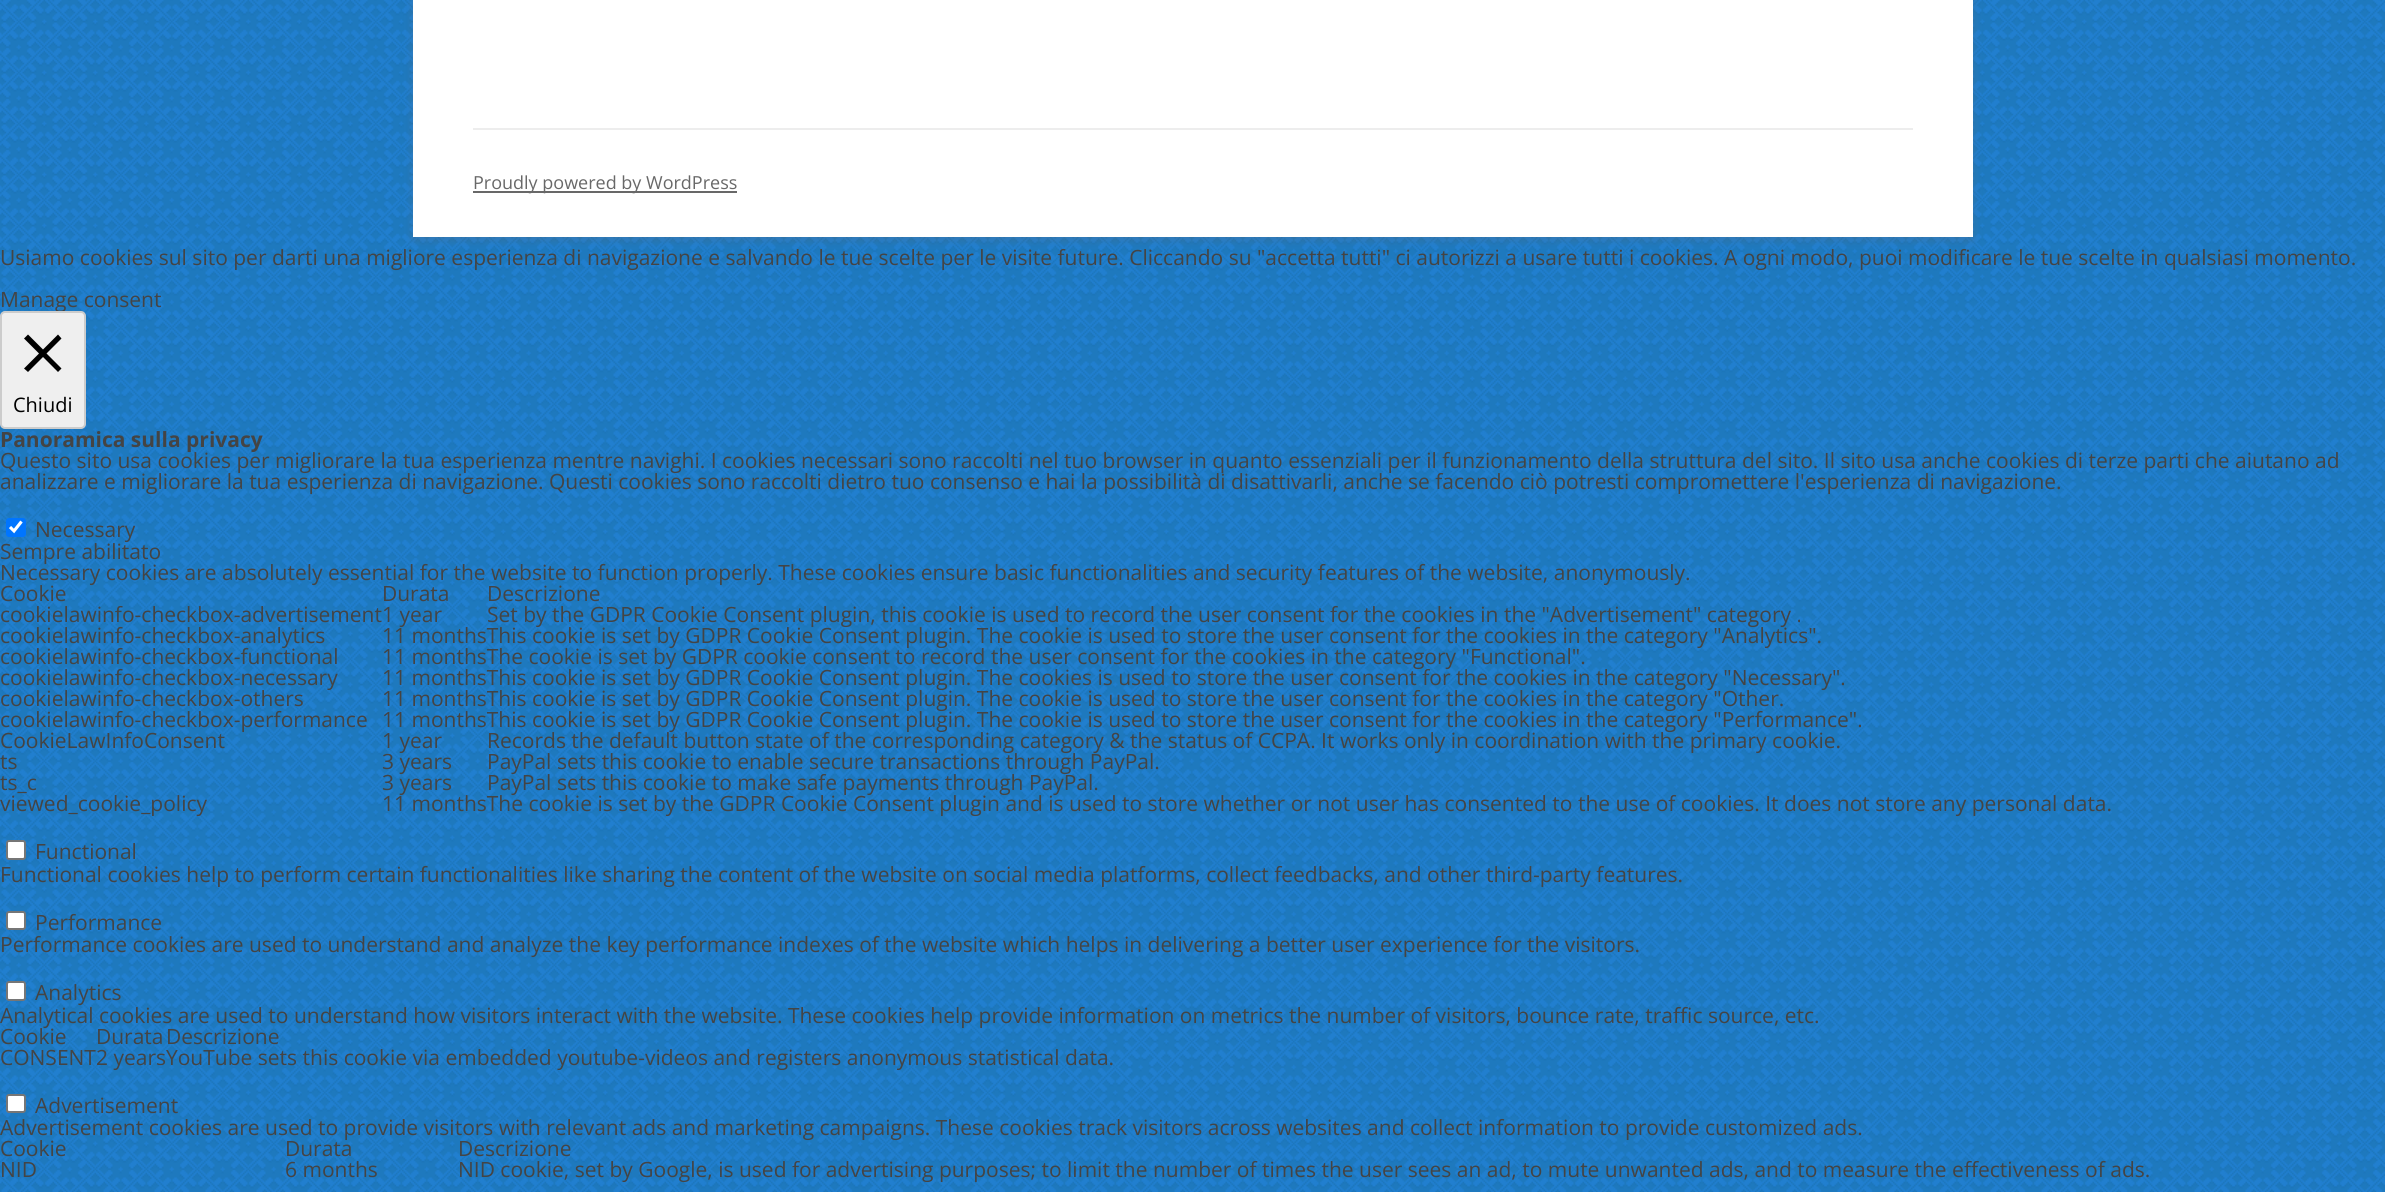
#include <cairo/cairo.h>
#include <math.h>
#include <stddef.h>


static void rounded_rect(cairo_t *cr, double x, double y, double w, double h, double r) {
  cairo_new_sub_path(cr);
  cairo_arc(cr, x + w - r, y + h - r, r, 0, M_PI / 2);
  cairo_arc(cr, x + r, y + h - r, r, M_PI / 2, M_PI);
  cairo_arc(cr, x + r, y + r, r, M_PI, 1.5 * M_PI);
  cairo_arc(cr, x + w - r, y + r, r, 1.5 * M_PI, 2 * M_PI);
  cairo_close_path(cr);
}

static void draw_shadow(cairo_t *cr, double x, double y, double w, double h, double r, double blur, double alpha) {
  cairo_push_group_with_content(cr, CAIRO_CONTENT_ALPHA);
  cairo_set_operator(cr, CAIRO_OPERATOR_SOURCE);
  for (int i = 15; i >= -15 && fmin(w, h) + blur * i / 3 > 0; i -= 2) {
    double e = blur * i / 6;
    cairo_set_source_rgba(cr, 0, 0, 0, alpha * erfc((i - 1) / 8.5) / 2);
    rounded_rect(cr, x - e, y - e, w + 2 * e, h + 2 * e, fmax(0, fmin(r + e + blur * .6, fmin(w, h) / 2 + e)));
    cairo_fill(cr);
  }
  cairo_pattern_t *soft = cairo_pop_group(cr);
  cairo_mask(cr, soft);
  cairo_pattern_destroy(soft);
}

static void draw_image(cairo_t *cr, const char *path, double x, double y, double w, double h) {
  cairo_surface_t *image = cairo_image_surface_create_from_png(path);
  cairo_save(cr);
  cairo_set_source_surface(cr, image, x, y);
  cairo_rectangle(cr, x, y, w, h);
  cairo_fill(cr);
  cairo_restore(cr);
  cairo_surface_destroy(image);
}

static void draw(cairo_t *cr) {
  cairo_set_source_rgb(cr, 1, 1, 1);
  cairo_paint(cr);
  draw_image(cr, "images/1.png", 0, 0, 2385, 1192);
  cairo_set_source_rgb(cr, 100 / 255.0, 100 / 255.0, 100 / 255.0);
  draw_shadow(cr, 413, -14, 1560, 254, 0, 4.5, 0.3);
  cairo_set_source_rgb(cr, 1, 1, 1);
  cairo_rectangle(cr, 413, 0, 1560, 237);
  cairo_fill(cr);
  cairo_set_source_rgb(cr, 237 / 255.0, 237 / 255.0, 237 / 255.0);
  cairo_rectangle(cr, 473, 128, 1440, 2);
  cairo_fill(cr);
  cairo_set_source_rgb(cr, 104 / 255.0, 104 / 255.0, 104 / 255.0);
  cairo_rectangle(cr, 473, 191, 264, 2);
  cairo_fill(cr);
  cairo_set_source_rgb(cr, 0, 117 / 255.0, 1);
  rounded_rect(cr, 6, 518, 20, 19, 3);
  cairo_fill(cr);
  cairo_new_path(cr);
  cairo_move_to(cr, 10, 527);
  cairo_line_to(cr, 14, 531);
  cairo_line_to(cr, 21.5, 521.5);
  cairo_set_source_rgb(cr, 1, 1, 1);
  cairo_set_line_width(cr, 3.1);
  cairo_stroke(cr);
  rounded_rect(cr, 7, 841, 18, 18, 2);
  cairo_fill_preserve(cr);
  cairo_set_source_rgb(cr, 118 / 255.0, 118 / 255.0, 118 / 255.0);
  cairo_set_line_width(cr, 2);
  cairo_stroke(cr);
  cairo_set_source_rgb(cr, 1, 1, 1);
  rounded_rect(cr, 7, 912, 18, 17, 2);
  cairo_fill_preserve(cr);
  cairo_set_source_rgb(cr, 118 / 255.0, 118 / 255.0, 118 / 255.0);
  cairo_stroke(cr);
  cairo_set_source_rgb(cr, 1, 1, 1);
  rounded_rect(cr, 7, 982, 18, 18, 2);
  cairo_fill_preserve(cr);
  cairo_set_source_rgb(cr, 118 / 255.0, 118 / 255.0, 118 / 255.0);
  cairo_stroke(cr);
  cairo_set_source_rgb(cr, 1, 1, 1);
  rounded_rect(cr, 7, 1095, 18, 17, 2);
  cairo_fill_preserve(cr);
  cairo_set_source_rgb(cr, 118 / 255.0, 118 / 255.0, 118 / 255.0);
  cairo_stroke(cr);
  cairo_select_font_face(cr, "Open Sans", CAIRO_FONT_SLANT_NORMAL, CAIRO_FONT_WEIGHT_NORMAL);
  cairo_set_font_size(cr, 18);
  cairo_set_source_rgb(cr, 104 / 255.0, 104 / 255.0, 104 / 255.0);
  cairo_move_to(cr, 473, 189);
  cairo_show_text(cr, "Proudly powered by WordPress");
  cairo_set_font_size(cr, 21);
  cairo_set_source_rgb(cr, 68 / 255.0, 68 / 255.0, 68 / 255.0);
  cairo_move_to(cr, 0, 265);
  cairo_show_text(cr, "Usiamo cookies sul sito per darti una migliore esperienza di navigazione e salvando le tue scelte per le visite future. Cliccando su \"accetta tutti\" ci autorizzi a usare tutti i cookies. A ogni modo, puoi modificare le tue scelte in qualsiasi momento.");
  cairo_move_to(cr, 0, 307);
  cairo_show_text(cr, "Manage consent");
  cairo_set_source_rgb(cr, 239 / 255.0, 239 / 255.0, 239 / 255.0);
  rounded_rect(cr, 1, 312, 84, 116, 4);
  cairo_fill_preserve(cr);
  cairo_set_source_rgb(cr, 204 / 255.0, 204 / 255.0, 204 / 255.0);
  cairo_stroke(cr);
  cairo_set_source_rgb(cr, 0, 0, 0);
  cairo_new_path(cr);
  cairo_move_to(cr, 61.5, 338.5);
  cairo_line_to(cr, 58, 334.5);
  cairo_line_to(cr, 43, 349.5);
  cairo_line_to(cr, 28, 334.5);
  cairo_line_to(cr, 24, 338.5);
  cairo_line_to(cr, 39, 353.5);
  cairo_line_to(cr, 24, 368.5);
  cairo_line_to(cr, 28, 372);
  cairo_line_to(cr, 43, 357);
  cairo_line_to(cr, 58, 372);
  cairo_line_to(cr, 61.5, 368.5);
  cairo_line_to(cr, 46.5, 353.5);
  cairo_close_path(cr);
  cairo_fill(cr);
  cairo_set_font_size(cr, 20);
  cairo_move_to(cr, 13, 412);
  cairo_show_text(cr, "Chiudi");
  cairo_select_font_face(cr, "Open Sans", CAIRO_FONT_SLANT_NORMAL, CAIRO_FONT_WEIGHT_BOLD);
  cairo_set_font_size(cr, 21);
  cairo_set_source_rgb(cr, 68 / 255.0, 68 / 255.0, 68 / 255.0);
  cairo_move_to(cr, 0, 447);
  cairo_show_text(cr, "Panoramica sulla privacy");
  cairo_select_font_face(cr, "Open Sans", CAIRO_FONT_SLANT_NORMAL, CAIRO_FONT_WEIGHT_NORMAL);
  cairo_move_to(cr, 0, 468);
  cairo_show_text(cr, "Questo sito usa cookies per migliorare la tua esperienza mentre navighi. I cookies necessari sono raccolti nel tuo browser in quanto essenziali per il funzionamento della struttura del sito. Il sito usa anche cookies di terze parti che aiutano ad");
  cairo_move_to(cr, 0, 489);
  cairo_show_text(cr, "analizzare e migliorare la tua esperienza di navigazione. Questi cookies sono raccolti dietro tuo consenso e hai la possibilità di disattivarli, anche se facendo ciò potresti compromettere l'esperienza di navigazione.");
  cairo_move_to(cr, 35, 537);
  cairo_show_text(cr, "Necessary");
  cairo_move_to(cr, 0, 559);
  cairo_show_text(cr, "Sempre abilitato");
  cairo_move_to(cr, 0, 580);
  cairo_show_text(cr, "Necessary cookies are absolutely essential for the website to function properly. These cookies ensure basic functionalities and security features of the website, anonymously.");
  cairo_move_to(cr, 0, 601);
  cairo_show_text(cr, "Cookie");
  cairo_move_to(cr, 382, 601);
  cairo_show_text(cr, "Durata");
  cairo_move_to(cr, 487, 601);
  cairo_show_text(cr, "Descrizione");
  cairo_move_to(cr, 0, 622);
  cairo_show_text(cr, "cookielawinfo-checkbox-advertisement1 year");
  cairo_move_to(cr, 487, 622);
  cairo_show_text(cr, "Set by the GDPR Cookie Consent plugin, this cookie is used to record the user consent for the cookies in the \"Advertisement\" category .");
  cairo_move_to(cr, 0, 643);
  cairo_show_text(cr, "cookielawinfo-checkbox-analytics");
  cairo_move_to(cr, 382, 643);
  cairo_show_text(cr, "11 monthsThis cookie is set by GDPR Cookie Consent plugin. The cookie is used to store the user consent for the cookies in the category \"Analytics\".");
  cairo_move_to(cr, 0, 664);
  cairo_show_text(cr, "cookielawinfo-checkbox-functional");
  cairo_move_to(cr, 382, 664);
  cairo_show_text(cr, "11 monthsThe cookie is set by GDPR cookie consent to record the user consent for the cookies in the category \"Functional\".");
  cairo_move_to(cr, 0, 685);
  cairo_show_text(cr, "cookielawinfo-checkbox-necessary");
  cairo_move_to(cr, 382, 685);
  cairo_show_text(cr, "11 monthsThis cookie is set by GDPR Cookie Consent plugin. The cookies is used to store the user consent for the cookies in the category \"Necessary\".");
  cairo_move_to(cr, 0, 706);
  cairo_show_text(cr, "cookielawinfo-checkbox-others");
  cairo_move_to(cr, 382, 706);
  cairo_show_text(cr, "11 monthsThis cookie is set by GDPR Cookie Consent plugin. The cookie is used to store the user consent for the cookies in the category \"Other.");
  cairo_move_to(cr, 0, 727);
  cairo_show_text(cr, "cookielawinfo-checkbox-performance");
  cairo_move_to(cr, 382, 727);
  cairo_show_text(cr, "11 monthsThis cookie is set by GDPR Cookie Consent plugin. The cookie is used to store the user consent for the cookies in the category \"Performance\".");
  cairo_move_to(cr, 0, 748);
  cairo_show_text(cr, "CookieLawInfoConsent");
  cairo_move_to(cr, 382, 748);
  cairo_show_text(cr, "1 year");
  cairo_move_to(cr, 487, 748);
  cairo_show_text(cr, "Records the default button state of the corresponding category & the status of CCPA. It works only in coordination with the primary cookie.");
  cairo_move_to(cr, 0, 769);
  cairo_show_text(cr, "ts");
  cairo_move_to(cr, 382, 769);
  cairo_show_text(cr, "3 years");
  cairo_move_to(cr, 487, 769);
  cairo_show_text(cr, "PayPal sets this cookie to enable secure transactions through PayPal.");
  cairo_move_to(cr, 0, 790);
  cairo_show_text(cr, "ts_c");
  cairo_move_to(cr, 382, 790);
  cairo_show_text(cr, "3 years");
  cairo_move_to(cr, 487, 790);
  cairo_show_text(cr, "PayPal sets this cookie to make safe payments through PayPal.");
  cairo_move_to(cr, 0, 811);
  cairo_show_text(cr, "viewed_cookie_policy");
  cairo_move_to(cr, 382, 811);
  cairo_show_text(cr, "11 monthsThe cookie is set by the GDPR Cookie Consent plugin and is used to store whether or not user has consented to the use of cookies. It does not store any personal data.");
  cairo_move_to(cr, 35, 859);
  cairo_show_text(cr, "Functional");
  cairo_move_to(cr, 0, 882);
  cairo_show_text(cr, "Functional cookies help to perform certain functionalities like sharing the content of the website on social media platforms, collect feedbacks, and other third-party features.");
  cairo_move_to(cr, 35, 930);
  cairo_show_text(cr, "Performance");
  cairo_move_to(cr, 0, 952);
  cairo_show_text(cr, "Performance cookies are used to understand and analyze the key performance indexes of the website which helps in delivering a better user experience for the visitors.");
  cairo_move_to(cr, 35, 1000);
  cairo_show_text(cr, "Analytics");
  cairo_move_to(cr, 0, 1023);
  cairo_show_text(cr, "Analytical cookies are used to understand how visitors interact with the website. These cookies help provide information on metrics the number of visitors, bounce rate, traffic source, etc.");
  cairo_move_to(cr, 0, 1044);
  cairo_show_text(cr, "Cookie");
  cairo_move_to(cr, 96, 1044);
  cairo_show_text(cr, "Durata");
  cairo_move_to(cr, 166, 1044);
  cairo_show_text(cr, "Descrizione");
  cairo_move_to(cr, 0, 1065);
  cairo_show_text(cr, "CONSENT2 yearsYouTube sets this cookie via embedded youtube-videos and registers anonymous statistical data.");
  cairo_move_to(cr, 35, 1113);
  cairo_show_text(cr, "Advertisement");
  cairo_move_to(cr, 0, 1135);
  cairo_show_text(cr, "Advertisement cookies are used to provide visitors with relevant ads and marketing campaigns. These cookies track visitors across websites and collect information to provide customized ads.");
  cairo_move_to(cr, 0, 1156);
  cairo_show_text(cr, "Cookie");
  cairo_move_to(cr, 285, 1156);
  cairo_show_text(cr, "Durata");
  cairo_move_to(cr, 458, 1156);
  cairo_show_text(cr, "Descrizione");
  cairo_move_to(cr, 0, 1177);
  cairo_show_text(cr, "NID");
  cairo_move_to(cr, 285, 1177);
  cairo_show_text(cr, "6 months");
  cairo_move_to(cr, 458, 1177);
  cairo_show_text(cr, "NID cookie, set by Google, is used for advertising purposes; to limit the number of times the user sees an ad, to mute unwanted ads, and to measure the effectiveness of ads.");
}

int main(void) {
  cairo_surface_t *surface = cairo_image_surface_create(CAIRO_FORMAT_RGB24, 2385, 1192);
  cairo_t *cr = cairo_create(surface);
  cairo_font_options_t *options = cairo_font_options_create();
  cairo_font_options_set_hint_metrics(options, CAIRO_HINT_METRICS_OFF);
  cairo_font_options_set_hint_style(options, CAIRO_HINT_STYLE_NONE);
  cairo_set_font_options(cr, options);
  cairo_set_miter_limit(cr, 4);
  draw(cr);
  cairo_surface_write_to_png(surface, "out.png");
  cairo_font_options_destroy(options);
  cairo_destroy(cr);
  cairo_surface_destroy(surface);
  return 0;
}
